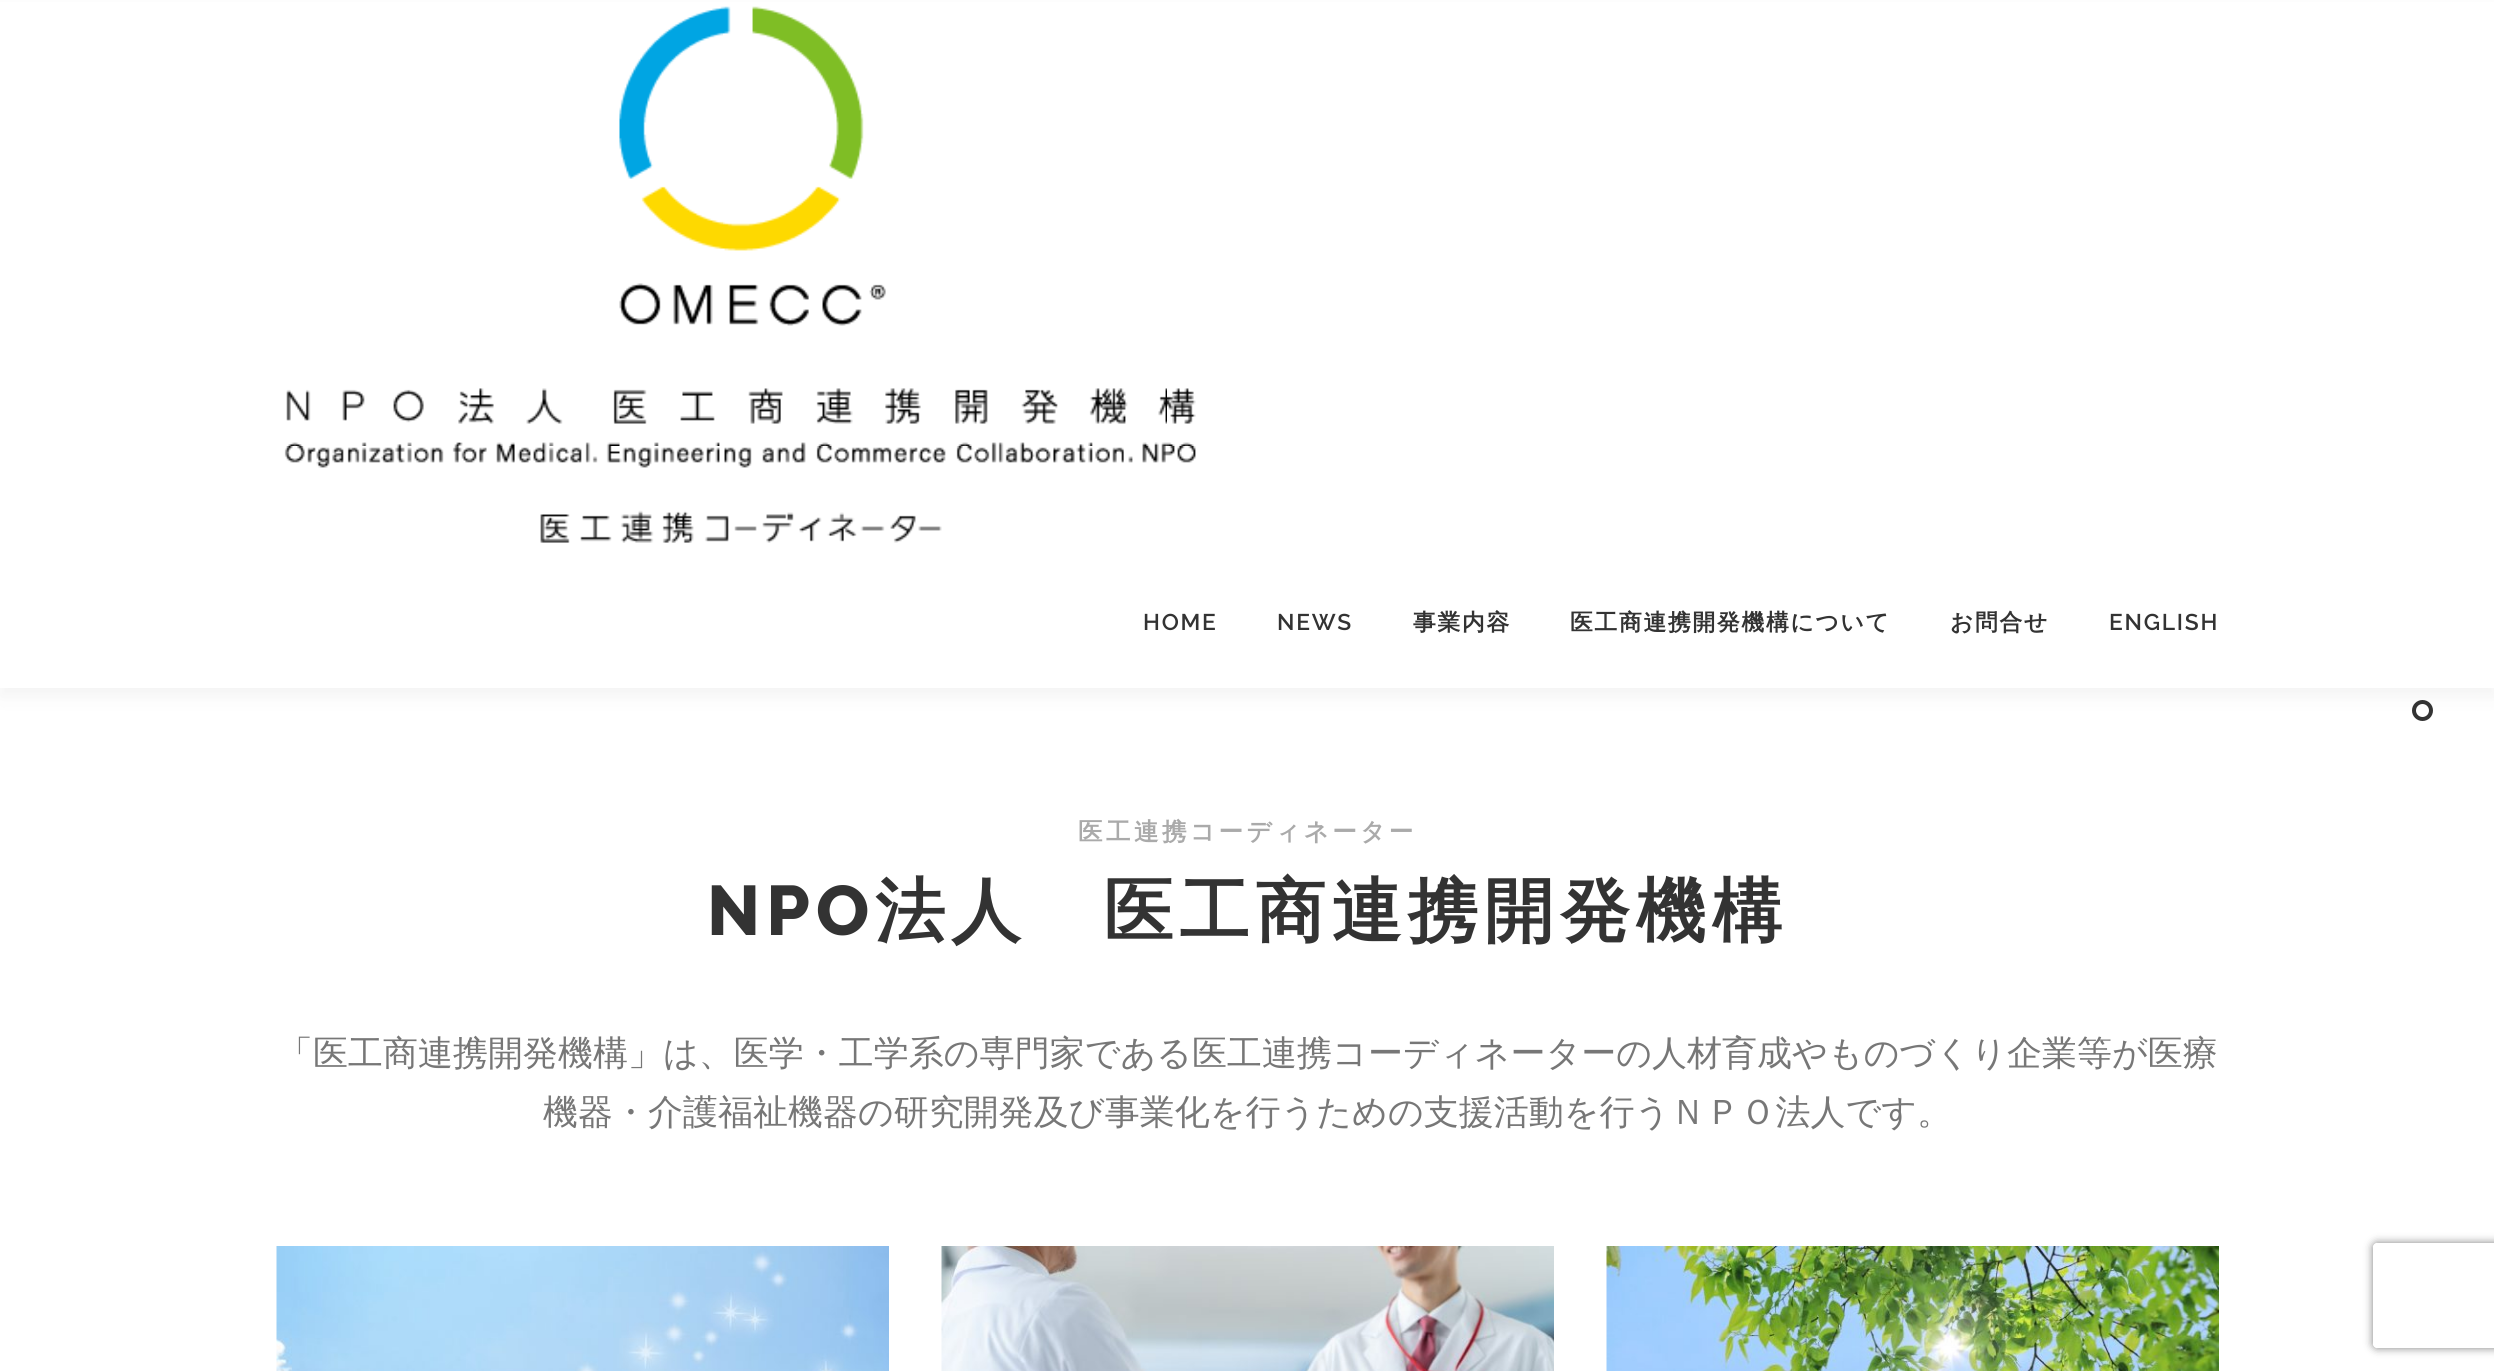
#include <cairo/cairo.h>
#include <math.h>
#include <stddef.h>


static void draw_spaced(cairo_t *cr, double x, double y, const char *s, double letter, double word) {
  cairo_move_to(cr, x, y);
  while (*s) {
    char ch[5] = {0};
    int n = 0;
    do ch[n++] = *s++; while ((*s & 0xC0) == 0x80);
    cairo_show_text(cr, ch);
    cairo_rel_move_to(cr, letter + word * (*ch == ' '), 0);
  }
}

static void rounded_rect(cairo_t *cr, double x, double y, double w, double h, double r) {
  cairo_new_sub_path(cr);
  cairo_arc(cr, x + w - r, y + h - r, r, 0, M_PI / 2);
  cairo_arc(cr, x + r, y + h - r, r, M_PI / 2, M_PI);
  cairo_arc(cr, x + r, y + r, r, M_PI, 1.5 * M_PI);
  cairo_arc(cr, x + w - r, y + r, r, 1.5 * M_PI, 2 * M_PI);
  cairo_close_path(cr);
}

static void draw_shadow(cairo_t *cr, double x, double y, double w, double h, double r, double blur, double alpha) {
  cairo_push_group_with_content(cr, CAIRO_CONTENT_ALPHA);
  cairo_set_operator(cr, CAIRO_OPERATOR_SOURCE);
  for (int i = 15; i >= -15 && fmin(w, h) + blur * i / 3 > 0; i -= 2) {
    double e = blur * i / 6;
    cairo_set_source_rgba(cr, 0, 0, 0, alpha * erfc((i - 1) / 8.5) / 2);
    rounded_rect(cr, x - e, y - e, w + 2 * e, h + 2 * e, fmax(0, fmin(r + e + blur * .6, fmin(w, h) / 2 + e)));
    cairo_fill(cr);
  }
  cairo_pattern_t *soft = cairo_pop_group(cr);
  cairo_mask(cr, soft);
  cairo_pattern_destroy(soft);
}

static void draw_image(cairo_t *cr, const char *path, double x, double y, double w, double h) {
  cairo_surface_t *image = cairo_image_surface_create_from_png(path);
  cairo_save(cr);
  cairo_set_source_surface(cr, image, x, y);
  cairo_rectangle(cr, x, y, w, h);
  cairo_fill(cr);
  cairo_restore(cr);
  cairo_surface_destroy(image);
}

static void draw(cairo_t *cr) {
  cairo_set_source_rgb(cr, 1, 1, 1);
  cairo_paint(cr);
  cairo_arc(cr, 2422.5, 710.5, 8.5, 0, 2 * M_PI);
  cairo_set_source_rgb(cr, 51 / 255.0, 51 / 255.0, 51 / 255.0);
  cairo_set_line_width(cr, 4);
  cairo_stroke(cr);
  cairo_set_source_rgb(cr, 50 / 255.0, 50 / 255.0, 50 / 255.0);
  draw_shadow(cr, 0, 9, 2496, 688, 0, 9, 0.06);
  cairo_set_source_rgb(cr, 1, 1, 1);
  cairo_rectangle(cr, 0, 2, 2494, 686);
  cairo_fill(cr);
  draw_image(cr, "images/1.png", 284, 6, 912, 537);
  draw_image(cr, "images/2.png", 276, 1246, 613, 125);
  draw_image(cr, "images/3.png", 941, 1246, 613, 125);
  draw_image(cr, "images/4.png", 1606, 1246, 613, 125);
  cairo_save(cr);
  cairo_set_fill_rule(cr, CAIRO_FILL_RULE_EVEN_ODD);
  cairo_new_path(cr);
  cairo_move_to(cr, 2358, 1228);
  cairo_line_to(cr, 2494, 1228);
  cairo_line_to(cr, 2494, 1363);
  cairo_line_to(cr, 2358, 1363);
  cairo_close_path(cr);
  cairo_move_to(cr, 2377, 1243);
  cairo_line_to(cr, 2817, 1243);
  cairo_curve_to(cr, 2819, 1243, 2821, 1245, 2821, 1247);
  cairo_line_to(cr, 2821, 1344);
  cairo_curve_to(cr, 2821, 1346, 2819, 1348, 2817, 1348);
  cairo_line_to(cr, 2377, 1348);
  cairo_curve_to(cr, 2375, 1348, 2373, 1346, 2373, 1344);
  cairo_line_to(cr, 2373, 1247);
  cairo_curve_to(cr, 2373, 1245, 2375, 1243, 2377, 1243);
  cairo_close_path(cr);
  cairo_clip(cr);
  cairo_set_source_rgb(cr, 128 / 255.0, 128 / 255.0, 128 / 255.0);
  draw_shadow(cr, 2373, 1243, 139, 105, 4, 4.5, 1);
  cairo_restore(cr);
  cairo_select_font_face(cr, "Raleway SemiBold", CAIRO_FONT_SLANT_NORMAL, CAIRO_FONT_WEIGHT_NORMAL);
  cairo_set_font_size(cr, 22.75);
  cairo_set_source_rgb(cr, 51 / 255.0, 51 / 255.0, 51 / 255.0);
  draw_spaced(cr, 1143, 630, "HOME", 1.75, 0);
  draw_spaced(cr, 1277, 630, "NEWS", 1.75, 0);
  cairo_select_font_face(cr, "WenQuanYi Zen Hei", CAIRO_FONT_SLANT_NORMAL, CAIRO_FONT_WEIGHT_BOLD);
  draw_spaced(cr, 1413, 630, "事業内容", 1.75, 0);
  draw_spaced(cr, 1570, 630, "医工商連携開発機構について", 1.75, 0);
  draw_spaced(cr, 1950, 630, "お問合せ", 1.75, 0);
  cairo_select_font_face(cr, "Raleway SemiBold", CAIRO_FONT_SLANT_NORMAL, CAIRO_FONT_WEIGHT_NORMAL);
  draw_spaced(cr, 2109, 630, "ENGLISH", 1.75, 0);
  cairo_select_font_face(cr, "WenQuanYi Zen Hei", CAIRO_FONT_SLANT_NORMAL, CAIRO_FONT_WEIGHT_BOLD);
  cairo_set_font_size(cr, 24.5);
  cairo_set_source_rgb(cr, 170 / 255.0, 170 / 255.0, 170 / 255.0);
  draw_spaced(cr, 1078, 840, "医工連携コーディネーター", 3.5, 0);
  cairo_select_font_face(cr, "Raleway ExtraBold", CAIRO_FONT_SLANT_NORMAL, CAIRO_FONT_WEIGHT_NORMAL);
  cairo_set_font_size(cr, 70);
  cairo_set_source_rgb(cr, 51 / 255.0, 51 / 255.0, 51 / 255.0);
  draw_spaced(cr, 707, 935, "NPO", 6.1, 0);
  cairo_select_font_face(cr, "WenQuanYi Zen Hei", CAIRO_FONT_SLANT_NORMAL, CAIRO_FONT_WEIGHT_BOLD);
  draw_spaced(cr, 875, 935, "法人　医工商連携開発機構", 6.1, 0);
  cairo_select_font_face(cr, "WenQuanYi Zen Hei Medium", CAIRO_FONT_SLANT_NORMAL, CAIRO_FONT_WEIGHT_NORMAL);
  cairo_set_font_size(cr, 35);
  cairo_set_source_rgb(cr, 119 / 255.0, 119 / 255.0, 119 / 255.0);
  cairo_move_to(cr, 278, 1065);
  cairo_show_text(cr, "「医工商連携開発機構」は、医学・工学系の専門家である医工連携コーディネーターの人材育成やものづくり企業等が医療");
  cairo_move_to(cr, 543, 1124);
  cairo_show_text(cr, "機器・介護福祉機器の研究開発及び事業化を行うための支援活動を行うＮＰＯ法人です。");
}

int main(void) {
  cairo_surface_t *surface = cairo_image_surface_create(CAIRO_FORMAT_RGB24, 2494, 1371);
  cairo_t *cr = cairo_create(surface);
  cairo_font_options_t *options = cairo_font_options_create();
  cairo_font_options_set_hint_metrics(options, CAIRO_HINT_METRICS_OFF);
  cairo_font_options_set_hint_style(options, CAIRO_HINT_STYLE_NONE);
  cairo_set_font_options(cr, options);
  cairo_set_miter_limit(cr, 4);
  draw(cr);
  cairo_surface_write_to_png(surface, "out.png");
  cairo_font_options_destroy(options);
  cairo_destroy(cr);
  cairo_surface_destroy(surface);
  return 0;
}
